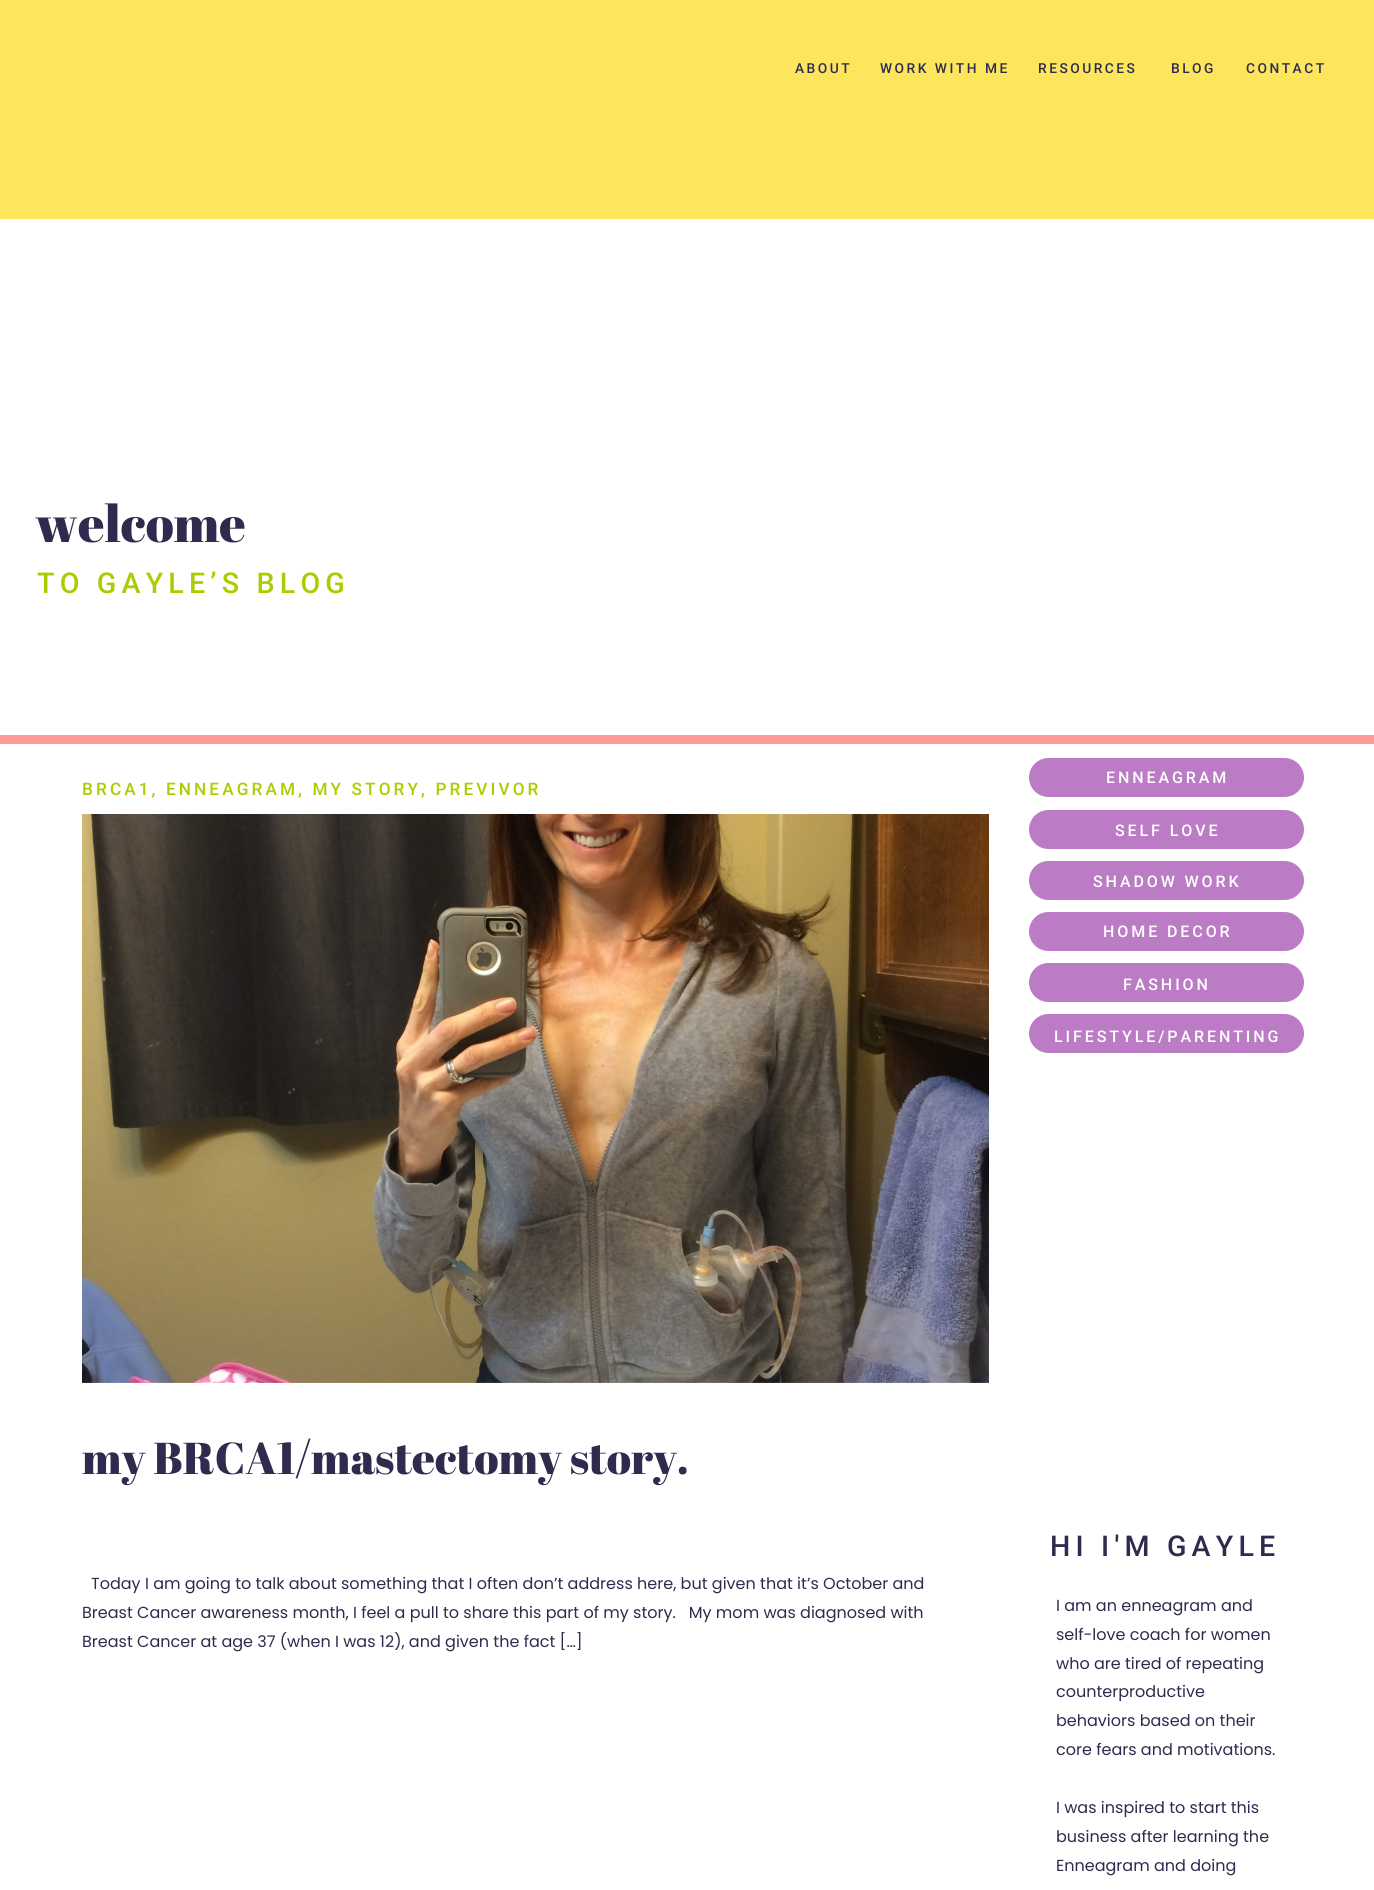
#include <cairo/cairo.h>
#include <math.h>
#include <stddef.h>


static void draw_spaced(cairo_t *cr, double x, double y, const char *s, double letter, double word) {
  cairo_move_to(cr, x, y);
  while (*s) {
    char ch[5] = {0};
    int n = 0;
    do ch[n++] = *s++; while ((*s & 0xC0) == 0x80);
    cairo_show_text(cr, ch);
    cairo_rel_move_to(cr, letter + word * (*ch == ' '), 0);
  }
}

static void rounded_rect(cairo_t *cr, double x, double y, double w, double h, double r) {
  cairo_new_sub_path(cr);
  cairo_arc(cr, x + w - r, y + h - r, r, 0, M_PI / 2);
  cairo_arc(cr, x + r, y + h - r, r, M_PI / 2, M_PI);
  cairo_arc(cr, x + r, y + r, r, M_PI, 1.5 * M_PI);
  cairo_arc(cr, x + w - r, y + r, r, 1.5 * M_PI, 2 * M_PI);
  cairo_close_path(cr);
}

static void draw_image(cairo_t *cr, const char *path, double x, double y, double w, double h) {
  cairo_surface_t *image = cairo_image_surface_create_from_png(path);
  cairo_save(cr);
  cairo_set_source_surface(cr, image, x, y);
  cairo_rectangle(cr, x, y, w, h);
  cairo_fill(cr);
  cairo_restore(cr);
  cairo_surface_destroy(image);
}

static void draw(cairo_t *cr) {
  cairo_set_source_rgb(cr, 254 / 255.0, 155 / 255.0, 150 / 255.0);
  cairo_paint(cr);
  cairo_set_source_rgb(cr, 253 / 255.0, 230 / 255.0, 92 / 255.0);
  cairo_rectangle(cr, 0, 0, 1374, 219);
  cairo_fill(cr);
  cairo_set_source_rgb(cr, 1, 1, 1);
  cairo_rectangle(cr, 0, 219, 1374, 516);
  cairo_fill(cr);
  cairo_rectangle(cr, 0, 744, 1374, 1146);
  cairo_fill(cr);
  draw_image(cr, "images/1.png", 82, 814, 907, 569);
  cairo_set_source_rgb(cr, 187 / 255.0, 124 / 255.0, 197 / 255.0);
  rounded_rect(cr, 1029, 758, 275, 39, 19.5);
  cairo_fill(cr);
  rounded_rect(cr, 1029, 810, 275, 39, 19.5);
  cairo_fill(cr);
  rounded_rect(cr, 1029, 861, 275, 39, 19.5);
  cairo_fill(cr);
  rounded_rect(cr, 1029, 912, 275, 39, 19.5);
  cairo_fill(cr);
  rounded_rect(cr, 1029, 963, 275, 39, 19.5);
  cairo_fill(cr);
  rounded_rect(cr, 1029, 1014, 275, 39, 19.5);
  cairo_fill(cr);
  cairo_select_font_face(cr, "Roboto Medium", CAIRO_FONT_SLANT_NORMAL, CAIRO_FONT_WEIGHT_NORMAL);
  cairo_set_font_size(cr, 13.75);
  cairo_set_source_rgb(cr, 47 / 255.0, 43 / 255.0, 78 / 255.0);
  draw_spaced(cr, 795, 73, "ABOUT", 2.5, 0);
  draw_spaced(cr, 880, 73, "WORK WITH ME", 2.5, 0);
  draw_spaced(cr, 1038, 73, "RESOURCES", 2.5, 0);
  draw_spaced(cr, 1171, 73, "BLOG", 2.5, 0);
  draw_spaced(cr, 1246, 73, "CONTACT", 2.5, 0);
  cairo_select_font_face(cr, "Abril Fatface", CAIRO_FONT_SLANT_NORMAL, CAIRO_FONT_WEIGHT_NORMAL);
  cairo_set_font_size(cr, 51.5);
  cairo_move_to(cr, 35, 542);
  cairo_show_text(cr, "welcome");
  cairo_select_font_face(cr, "Roboto Medium", CAIRO_FONT_SLANT_NORMAL, CAIRO_FONT_WEIGHT_NORMAL);
  cairo_set_font_size(cr, 28.6);
  cairo_set_source_rgb(cr, 173 / 255.0, 203 / 255.0, 0);
  draw_spaced(cr, 37, 593, "TO GAYLE’S BLOG", 5.2, 0);
  cairo_set_font_size(cr, 17.2);
  draw_spaced(cr, 82, 795, "BRCA1, ENNEAGRAM, MY STORY, PREVIVOR", 3.1, 0);
  cairo_select_font_face(cr, "Abril Fatface", CAIRO_FONT_SLANT_NORMAL, CAIRO_FONT_WEIGHT_NORMAL);
  cairo_set_font_size(cr, 44.6);
  cairo_set_source_rgb(cr, 47 / 255.0, 43 / 255.0, 78 / 255.0);
  cairo_move_to(cr, 82, 1474);
  cairo_show_text(cr, "my BRCA1/mastectomy story.");
  cairo_select_font_face(cr, "Poppins", CAIRO_FONT_SLANT_NORMAL, CAIRO_FONT_WEIGHT_NORMAL);
  cairo_set_font_size(cr, 16.03);
  cairo_move_to(cr, 91, 1589);
  cairo_show_text(cr, "Today I am going to talk about something that I often don’t address here, but given that it’s October and");
  cairo_move_to(cr, 82, 1618);
  cairo_show_text(cr, "Breast Cancer awareness month, I feel a pull to share this part of my story.   My mom was diagnosed with");
  cairo_move_to(cr, 82, 1647);
  cairo_show_text(cr, "Breast Cancer at age 37 (when I was 12), and given the fact […]");
  cairo_select_font_face(cr, "Roboto Medium", CAIRO_FONT_SLANT_NORMAL, CAIRO_FONT_WEIGHT_NORMAL);
  cairo_set_source_rgb(cr, 1, 1, 1);
  draw_spaced(cr, 1106, 783, "ENNEAGRAM", 2.9, 0);
  draw_spaced(cr, 1115, 836, "SELF LOVE", 2.9, 0);
  draw_spaced(cr, 1093, 887, "SHADOW WORK", 2.9, 0);
  draw_spaced(cr, 1103, 937, "HOME DECOR", 2.9, 0);
  draw_spaced(cr, 1123, 990, "FASHION", 2.9, 0);
  draw_spaced(cr, 1054, 1042, "LIFESTYLE/PARENTING", 2.9, 0);
  cairo_set_font_size(cr, 28.6);
  cairo_set_source_rgb(cr, 47 / 255.0, 43 / 255.0, 78 / 255.0);
  draw_spaced(cr, 1050, 1556, "HI I'M GAYLE", 5.2, 0);
  cairo_select_font_face(cr, "Poppins", CAIRO_FONT_SLANT_NORMAL, CAIRO_FONT_WEIGHT_NORMAL);
  cairo_set_font_size(cr, 16.03);
  cairo_move_to(cr, 1056, 1611);
  cairo_show_text(cr, "I am an enneagram and");
  cairo_move_to(cr, 1056, 1640);
  cairo_show_text(cr, "self-love coach for women");
  cairo_move_to(cr, 1056, 1669);
  cairo_show_text(cr, "who are tired of repeating");
  cairo_move_to(cr, 1056, 1697);
  cairo_show_text(cr, "counterproductive");
  cairo_move_to(cr, 1056, 1726);
  cairo_show_text(cr, "behaviors based on their");
  cairo_move_to(cr, 1056, 1755);
  cairo_show_text(cr, "core fears and motivations.");
  cairo_move_to(cr, 1056, 1813);
  cairo_show_text(cr, "I was inspired to start this");
  cairo_move_to(cr, 1056, 1842);
  cairo_show_text(cr, "business after learning the");
  cairo_move_to(cr, 1056, 1871);
  cairo_show_text(cr, "Enneagram and doing");
}

int main(void) {
  cairo_surface_t *surface = cairo_image_surface_create(CAIRO_FORMAT_RGB24, 1374, 1890);
  cairo_t *cr = cairo_create(surface);
  cairo_font_options_t *options = cairo_font_options_create();
  cairo_font_options_set_hint_metrics(options, CAIRO_HINT_METRICS_OFF);
  cairo_font_options_set_hint_style(options, CAIRO_HINT_STYLE_NONE);
  cairo_set_font_options(cr, options);
  cairo_set_miter_limit(cr, 4);
  draw(cr);
  cairo_surface_write_to_png(surface, "out.png");
  cairo_font_options_destroy(options);
  cairo_destroy(cr);
  cairo_surface_destroy(surface);
  return 0;
}
